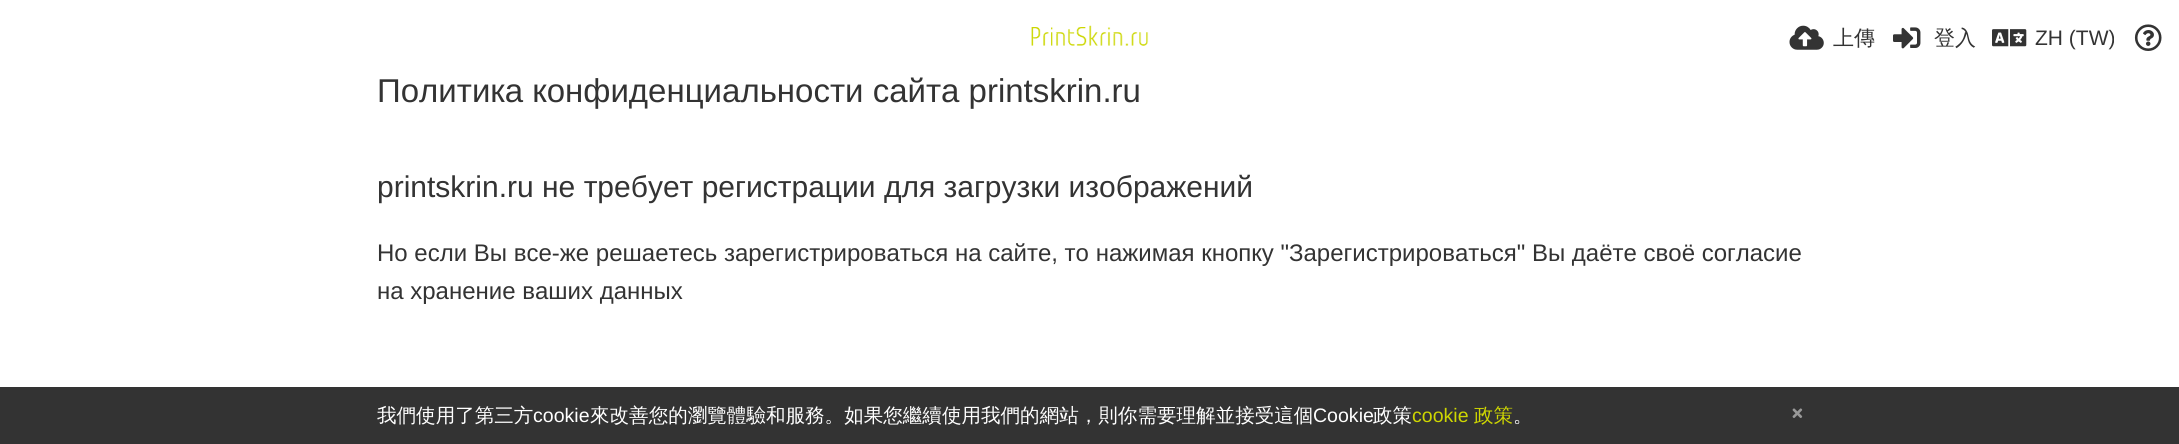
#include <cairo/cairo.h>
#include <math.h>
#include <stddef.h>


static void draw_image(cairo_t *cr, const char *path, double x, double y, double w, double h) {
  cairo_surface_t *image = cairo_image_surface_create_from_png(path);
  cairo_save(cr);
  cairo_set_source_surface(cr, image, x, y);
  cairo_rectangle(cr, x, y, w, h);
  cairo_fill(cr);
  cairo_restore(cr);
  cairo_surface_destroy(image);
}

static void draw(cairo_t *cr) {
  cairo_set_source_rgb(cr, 1, 1, 1);
  cairo_paint(cr);
  draw_image(cr, "images/1.png", 1031, 25, 118, 21);
  draw_image(cr, "images/2.png", 1789, 25, 35, 25);
  draw_image(cr, "images/3.png", 1893, 27, 28, 22);
  draw_image(cr, "images/4.png", 1992, 29, 35, 18);
  draw_image(cr, "images/5.png", 2134, 24, 28, 27);
  cairo_set_source_rgba(cr, 0, 0, 0, 0.8);
  cairo_rectangle(cr, 0, 387, 2179, 57);
  cairo_fill(cr);
  draw_image(cr, "images/6.png", 1792, 408, 11, 10);
  cairo_select_font_face(cr, "WenQuanYi Zen Hei Medium", CAIRO_FONT_SLANT_NORMAL, CAIRO_FONT_WEIGHT_NORMAL);
  cairo_set_font_size(cr, 21);
  cairo_set_source_rgb(cr, 51 / 255.0, 51 / 255.0, 51 / 255.0);
  cairo_move_to(cr, 1833, 45);
  cairo_show_text(cr, "上傳");
  cairo_move_to(cr, 1934, 45);
  cairo_show_text(cr, "登入");
  cairo_select_font_face(cr, "Liberation Sans", CAIRO_FONT_SLANT_NORMAL, CAIRO_FONT_WEIGHT_NORMAL);
  cairo_move_to(cr, 2035, 45);
  cairo_show_text(cr, "ZH (TW)");
  cairo_set_font_size(cr, 33);
  cairo_move_to(cr, 377, 102);
  cairo_show_text(cr, "Политика конфиденциальности сайта printskrin.ru");
  cairo_set_font_size(cr, 30);
  cairo_move_to(cr, 377, 197);
  cairo_show_text(cr, "printskrin.ru не требует регистрации для загрузки изображений");
  cairo_set_font_size(cr, 24);
  cairo_move_to(cr, 377, 261);
  cairo_show_text(cr, "Но если Вы все-же решаетесь зарегистрироваться на сайте, то нажимая кнопку \"Зарегистрироваться\" Вы даёте своё согласие");
  cairo_move_to(cr, 377, 299);
  cairo_show_text(cr, "на хранение ваших данных");
  cairo_select_font_face(cr, "WenQuanYi Zen Hei Medium", CAIRO_FONT_SLANT_NORMAL, CAIRO_FONT_WEIGHT_NORMAL);
  cairo_set_font_size(cr, 19.55);
  cairo_set_source_rgb(cr, 1, 1, 1);
  cairo_move_to(cr, 377, 422);
  cairo_show_text(cr, "我們使用了第三方");
  cairo_select_font_face(cr, "Liberation Sans", CAIRO_FONT_SLANT_NORMAL, CAIRO_FONT_WEIGHT_NORMAL);
  cairo_move_to(cr, 533, 422);
  cairo_show_text(cr, "cookie");
  cairo_select_font_face(cr, "WenQuanYi Zen Hei Medium", CAIRO_FONT_SLANT_NORMAL, CAIRO_FONT_WEIGHT_NORMAL);
  cairo_move_to(cr, 590, 422);
  cairo_show_text(cr, "來改善您的瀏覽體驗和服務。如果您繼續使用我們的網站，則你需要理解並接受這個");
  cairo_select_font_face(cr, "Liberation Sans", CAIRO_FONT_SLANT_NORMAL, CAIRO_FONT_WEIGHT_NORMAL);
  cairo_move_to(cr, 1313, 422);
  cairo_show_text(cr, "Cookie");
  cairo_select_font_face(cr, "WenQuanYi Zen Hei Medium", CAIRO_FONT_SLANT_NORMAL, CAIRO_FONT_WEIGHT_NORMAL);
  cairo_move_to(cr, 1373, 422);
  cairo_show_text(cr, "政策");
  cairo_select_font_face(cr, "Liberation Sans", CAIRO_FONT_SLANT_NORMAL, CAIRO_FONT_WEIGHT_NORMAL);
  cairo_set_source_rgb(cr, 206 / 255.0, 214 / 255.0, 1 / 255.0);
  cairo_move_to(cr, 1412, 422);
  cairo_show_text(cr, "cookie");
  cairo_select_font_face(cr, "WenQuanYi Zen Hei Medium", CAIRO_FONT_SLANT_NORMAL, CAIRO_FONT_WEIGHT_NORMAL);
  cairo_move_to(cr, 1474, 422);
  cairo_show_text(cr, "政策");
  cairo_set_source_rgb(cr, 1, 1, 1);
  cairo_move_to(cr, 1513, 422);
  cairo_show_text(cr, "。");
}

int main(void) {
  cairo_surface_t *surface = cairo_image_surface_create(CAIRO_FORMAT_RGB24, 2179, 444);
  cairo_t *cr = cairo_create(surface);
  cairo_font_options_t *options = cairo_font_options_create();
  cairo_font_options_set_hint_metrics(options, CAIRO_HINT_METRICS_OFF);
  cairo_font_options_set_hint_style(options, CAIRO_HINT_STYLE_NONE);
  cairo_set_font_options(cr, options);
  cairo_set_miter_limit(cr, 4);
  draw(cr);
  cairo_surface_write_to_png(surface, "out.png");
  cairo_font_options_destroy(options);
  cairo_destroy(cr);
  cairo_surface_destroy(surface);
  return 0;
}
